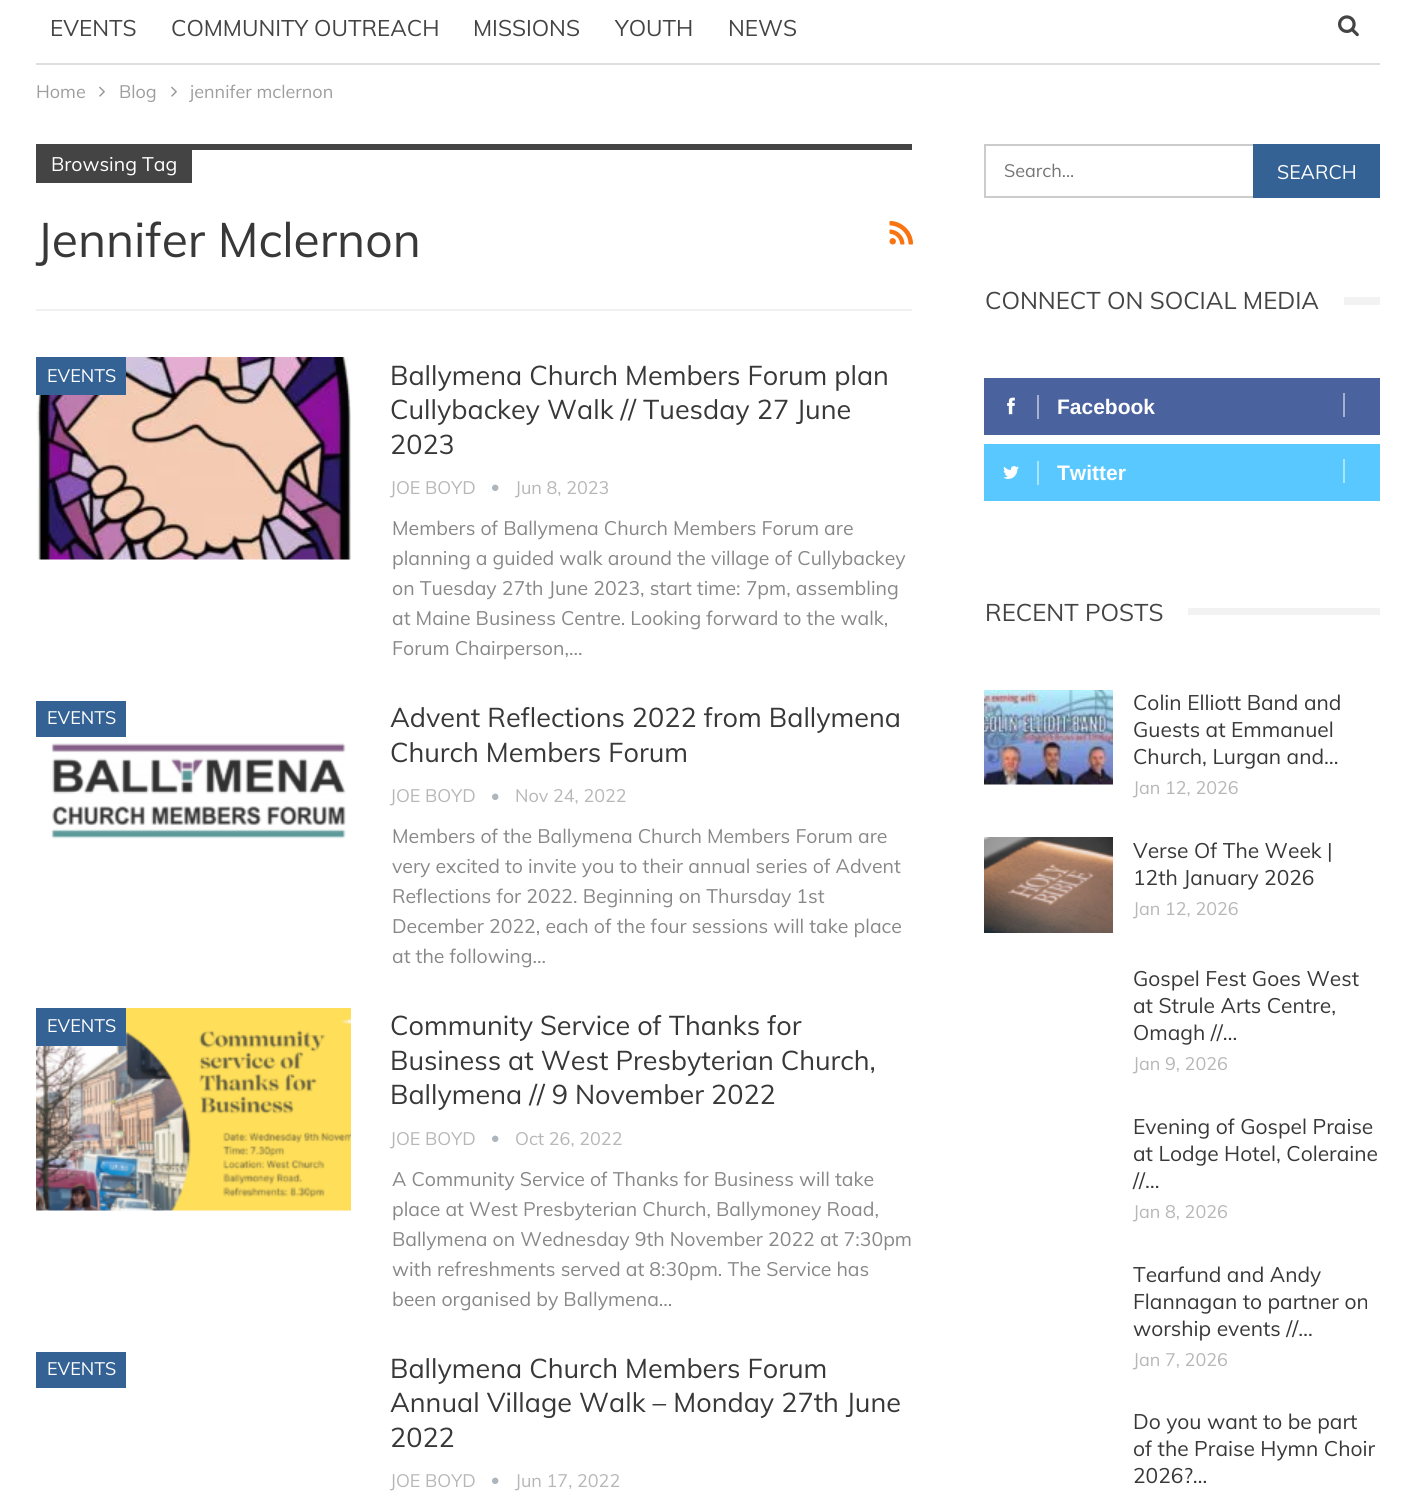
#include <cairo/cairo.h>
#include <math.h>
#include <stddef.h>


static void draw_image(cairo_t *cr, const char *path, double x, double y, double w, double h) {
  cairo_surface_t *image = cairo_image_surface_create_from_png(path);
  cairo_save(cr);
  cairo_set_source_surface(cr, image, x, y);
  cairo_rectangle(cr, x, y, w, h);
  cairo_fill(cr);
  cairo_restore(cr);
  cairo_surface_destroy(image);
}

static void draw(cairo_t *cr) {
  cairo_set_source_rgb(cr, 1, 1, 1);
  cairo_paint(cr);
  cairo_set_source_rgb(cr, 222 / 255.0, 222 / 255.0, 222 / 255.0);
  cairo_rectangle(cr, 36, 63, 1344, 2);
  cairo_fill(cr);
  draw_image(cr, "images/1.png", 1338, 15, 21, 22);
  draw_image(cr, "images/2.png", 99, 86, 6, 11);
  draw_image(cr, "images/2.png", 171, 86, 6, 11);
  cairo_set_source_rgb(cr, 240 / 255.0, 240 / 255.0, 240 / 255.0);
  cairo_rectangle(cr, 36, 309, 876, 2);
  cairo_fill(cr);
  cairo_set_source_rgb(cr, 68 / 255.0, 68 / 255.0, 68 / 255.0);
  cairo_rectangle(cr, 192, 144, 720, 6);
  cairo_fill(cr);
  cairo_rectangle(cr, 36, 144, 156, 39);
  cairo_fill(cr);
  draw_image(cr, "images/3.png", 889, 220, 25, 25);
  draw_image(cr, "images/4.png", 36, 357, 315, 203);
  cairo_set_source_rgb(cr, 52 / 255.0, 98 / 255.0, 149 / 255.0);
  cairo_rectangle(cr, 36, 357, 90, 38);
  cairo_fill(cr);
  draw_image(cr, "images/5.png", 492, 484, 7, 7);
  cairo_rectangle(cr, 36, 701, 90, 36);
  cairo_fill(cr);
  draw_image(cr, "images/6.png", 51, 743, 295, 96);
  draw_image(cr, "images/5.png", 492, 793, 7, 7);
  draw_image(cr, "images/7.png", 36, 1008, 315, 203);
  cairo_rectangle(cr, 36, 1008, 90, 38);
  cairo_fill(cr);
  draw_image(cr, "images/5.png", 492, 1135, 7, 7);
  cairo_rectangle(cr, 36, 1352, 90, 36);
  cairo_fill(cr);
  draw_image(cr, "images/5.png", 492, 1477, 7, 7);
  cairo_rectangle(cr, 985, 145, 394, 52);
  cairo_set_source_rgb(cr, 204 / 255.0, 204 / 255.0, 204 / 255.0);
  cairo_stroke(cr);
  cairo_set_source_rgb(cr, 52 / 255.0, 98 / 255.0, 149 / 255.0);
  cairo_rectangle(cr, 1253, 144, 127, 54);
  cairo_fill(cr);
  cairo_set_source_rgb(cr, 242 / 255.0, 242 / 255.0, 242 / 255.0);
  cairo_rectangle(cr, 1344, 297, 36, 8);
  cairo_fill(cr);
  cairo_set_source_rgb(cr, 74 / 255.0, 99 / 255.0, 159 / 255.0);
  cairo_rectangle(cr, 984, 378, 396, 57);
  cairo_fill(cr);
  draw_image(cr, "images/8.png", 1007, 397, 8, 18);
  cairo_set_source_rgb(cr, 165 / 255.0, 177 / 255.0, 207 / 255.0);
  cairo_rectangle(cr, 1037, 395, 2, 24);
  cairo_fill(cr);
  cairo_rectangle(cr, 1343, 393, 2, 24);
  cairo_fill(cr);
  cairo_set_source_rgb(cr, 89 / 255.0, 200 / 255.0, 1);
  cairo_rectangle(cr, 984, 444, 396, 57);
  cairo_fill(cr);
  draw_image(cr, "images/9.png", 1003, 466, 16, 13);
  cairo_set_source_rgb(cr, 172 / 255.0, 228 / 255.0, 1);
  cairo_rectangle(cr, 1037, 461, 2, 24);
  cairo_fill(cr);
  cairo_rectangle(cr, 1343, 459, 2, 24);
  cairo_fill(cr);
  cairo_set_source_rgb(cr, 242 / 255.0, 242 / 255.0, 242 / 255.0);
  cairo_rectangle(cr, 1188, 608, 192, 7);
  cairo_fill(cr);
  draw_image(cr, "images/10.png", 984, 690, 129, 95);
  draw_image(cr, "images/11.png", 984, 837, 129, 96);
  cairo_select_font_face(cr, "Muli", CAIRO_FONT_SLANT_NORMAL, CAIRO_FONT_WEIGHT_NORMAL);
  cairo_set_font_size(cr, 22.5);
  cairo_set_source_rgb(cr, 68 / 255.0, 68 / 255.0, 68 / 255.0);
  cairo_move_to(cr, 50, 36);
  cairo_show_text(cr, "EVENTS");
  cairo_move_to(cr, 171, 36);
  cairo_show_text(cr, "COMMUNITY OUTREACH");
  cairo_move_to(cr, 473, 36);
  cairo_show_text(cr, "MISSIONS");
  cairo_move_to(cr, 615, 36);
  cairo_show_text(cr, "YOUTH");
  cairo_move_to(cr, 728, 36);
  cairo_show_text(cr, "NEWS");
  cairo_set_font_size(cr, 18);
  cairo_set_source_rgb(cr, 158 / 255.0, 158 / 255.0, 158 / 255.0);
  cairo_move_to(cr, 36, 98);
  cairo_show_text(cr, "Home");
  cairo_move_to(cr, 119, 98);
  cairo_show_text(cr, "Blog");
  cairo_move_to(cr, 190, 98);
  cairo_show_text(cr, "jennifer mclernon");
  cairo_set_font_size(cr, 19.5);
  cairo_set_source_rgb(cr, 1, 1, 1);
  cairo_move_to(cr, 51, 171);
  cairo_show_text(cr, "Browsing Tag");
  cairo_set_font_size(cr, 48);
  cairo_set_source_rgb(cr, 56 / 255.0, 56 / 255.0, 56 / 255.0);
  cairo_move_to(cr, 36, 257);
  cairo_show_text(cr, "Jennifer Mclernon");
  cairo_set_font_size(cr, 18);
  cairo_set_source_rgb(cr, 1, 1, 1);
  cairo_move_to(cr, 47, 382);
  cairo_show_text(cr, "EVENTS");
  cairo_set_font_size(cr, 27);
  cairo_set_source_rgb(cr, 56 / 255.0, 56 / 255.0, 56 / 255.0);
  cairo_move_to(cr, 390, 385);
  cairo_show_text(cr, "Ballymena Church Members Forum plan");
  cairo_move_to(cr, 390, 419);
  cairo_show_text(cr, "Cullybackey Walk // Tuesday 27 June");
  cairo_move_to(cr, 390, 454);
  cairo_show_text(cr, "2023");
  cairo_set_font_size(cr, 18);
  cairo_set_source_rgb(cr, 183 / 255.0, 183 / 255.0, 183 / 255.0);
  cairo_move_to(cr, 390, 494);
  cairo_show_text(cr, "JOE BOYD");
  cairo_move_to(cr, 515, 494);
  cairo_show_text(cr, "Jun 8, 2023");
  cairo_set_font_size(cr, 19.5);
  cairo_set_source_rgb(cr, 136 / 255.0, 136 / 255.0, 136 / 255.0);
  cairo_move_to(cr, 392, 535);
  cairo_show_text(cr, "Members of Ballymena Church Members Forum are");
  cairo_move_to(cr, 392, 565);
  cairo_show_text(cr, "planning a guided walk around the village of Cullybackey");
  cairo_move_to(cr, 392, 595);
  cairo_show_text(cr, "on Tuesday 27th June 2023, start time: 7pm, assembling");
  cairo_move_to(cr, 392, 625);
  cairo_show_text(cr, "at Maine Business Centre. Looking forward to the walk,");
  cairo_move_to(cr, 392, 655);
  cairo_show_text(cr, "Forum Chairperson,…");
  cairo_set_font_size(cr, 18);
  cairo_set_source_rgb(cr, 1, 1, 1);
  cairo_move_to(cr, 47, 724);
  cairo_show_text(cr, "EVENTS");
  cairo_set_font_size(cr, 27);
  cairo_set_source_rgb(cr, 56 / 255.0, 56 / 255.0, 56 / 255.0);
  cairo_move_to(cr, 390, 727);
  cairo_show_text(cr, "Advent Reflections 2022 from Ballymena");
  cairo_move_to(cr, 390, 762);
  cairo_show_text(cr, "Church Members Forum");
  cairo_set_font_size(cr, 18);
  cairo_set_source_rgb(cr, 183 / 255.0, 183 / 255.0, 183 / 255.0);
  cairo_move_to(cr, 390, 802);
  cairo_show_text(cr, "JOE BOYD");
  cairo_move_to(cr, 515, 802);
  cairo_show_text(cr, "Nov 24, 2022");
  cairo_set_font_size(cr, 19.5);
  cairo_set_source_rgb(cr, 136 / 255.0, 136 / 255.0, 136 / 255.0);
  cairo_move_to(cr, 392, 843);
  cairo_show_text(cr, "Members of the Ballymena Church Members Forum are");
  cairo_move_to(cr, 392, 873);
  cairo_show_text(cr, "very excited to invite you to their annual series of Advent");
  cairo_move_to(cr, 392, 903);
  cairo_show_text(cr, "Reflections for 2022. Beginning on Thursday 1st");
  cairo_move_to(cr, 392, 933);
  cairo_show_text(cr, "December 2022, each of the four sessions will take place");
  cairo_move_to(cr, 392, 963);
  cairo_show_text(cr, "at the following…");
  cairo_set_font_size(cr, 18);
  cairo_set_source_rgb(cr, 1, 1, 1);
  cairo_move_to(cr, 47, 1032);
  cairo_show_text(cr, "EVENTS");
  cairo_set_font_size(cr, 27);
  cairo_set_source_rgb(cr, 56 / 255.0, 56 / 255.0, 56 / 255.0);
  cairo_move_to(cr, 390, 1035);
  cairo_show_text(cr, "Community Service of Thanks for");
  cairo_move_to(cr, 390, 1070);
  cairo_show_text(cr, "Business at West Presbyterian Church,");
  cairo_move_to(cr, 390, 1104);
  cairo_show_text(cr, "Ballymena // 9 November 2022");
  cairo_set_font_size(cr, 18);
  cairo_set_source_rgb(cr, 183 / 255.0, 183 / 255.0, 183 / 255.0);
  cairo_move_to(cr, 390, 1145);
  cairo_show_text(cr, "JOE BOYD");
  cairo_move_to(cr, 515, 1145);
  cairo_show_text(cr, "Oct 26, 2022");
  cairo_set_font_size(cr, 19.5);
  cairo_set_source_rgb(cr, 136 / 255.0, 136 / 255.0, 136 / 255.0);
  cairo_move_to(cr, 392, 1186);
  cairo_show_text(cr, "A Community Service of Thanks for Business will take");
  cairo_move_to(cr, 392, 1216);
  cairo_show_text(cr, "place at West Presbyterian Church, Ballymoney Road,");
  cairo_move_to(cr, 392, 1246);
  cairo_show_text(cr, "Ballymena on Wednesday 9th November 2022 at 7:30pm");
  cairo_move_to(cr, 392, 1276);
  cairo_show_text(cr, "with refreshments served at 8:30pm. The Service has");
  cairo_move_to(cr, 392, 1306);
  cairo_show_text(cr, "been organised by Ballymena…");
  cairo_set_font_size(cr, 18);
  cairo_set_source_rgb(cr, 1, 1, 1);
  cairo_move_to(cr, 47, 1375);
  cairo_show_text(cr, "EVENTS");
  cairo_set_font_size(cr, 27);
  cairo_set_source_rgb(cr, 56 / 255.0, 56 / 255.0, 56 / 255.0);
  cairo_move_to(cr, 390, 1378);
  cairo_show_text(cr, "Ballymena Church Members Forum");
  cairo_move_to(cr, 390, 1412);
  cairo_show_text(cr, "Annual Village Walk – Monday 27th June");
  cairo_move_to(cr, 390, 1447);
  cairo_show_text(cr, "2022");
  cairo_set_font_size(cr, 18);
  cairo_set_source_rgb(cr, 183 / 255.0, 183 / 255.0, 183 / 255.0);
  cairo_move_to(cr, 390, 1487);
  cairo_show_text(cr, "JOE BOYD");
  cairo_move_to(cr, 515, 1487);
  cairo_show_text(cr, "Jun 17, 2022");
  cairo_set_source_rgb(cr, 117 / 255.0, 117 / 255.0, 117 / 255.0);
  cairo_move_to(cr, 1004, 177);
  cairo_show_text(cr, "Search...");
  cairo_set_font_size(cr, 19.5);
  cairo_set_source_rgb(cr, 1, 1, 1);
  cairo_move_to(cr, 1277, 179);
  cairo_show_text(cr, "SEARCH");
  cairo_set_font_size(cr, 24);
  cairo_set_source_rgb(cr, 68 / 255.0, 68 / 255.0, 68 / 255.0);
  cairo_move_to(cr, 985, 309);
  cairo_show_text(cr, "CONNECT ON SOCIAL MEDIA");
  cairo_select_font_face(cr, "Liberation Sans", CAIRO_FONT_SLANT_NORMAL, CAIRO_FONT_WEIGHT_BOLD);
  cairo_set_font_size(cr, 21);
  cairo_set_source_rgb(cr, 1, 1, 1);
  cairo_move_to(cr, 1057, 414);
  cairo_show_text(cr, "Facebook");
  cairo_move_to(cr, 1057, 480);
  cairo_show_text(cr, "Twitter");
  cairo_select_font_face(cr, "Muli", CAIRO_FONT_SLANT_NORMAL, CAIRO_FONT_WEIGHT_NORMAL);
  cairo_set_font_size(cr, 24);
  cairo_set_source_rgb(cr, 68 / 255.0, 68 / 255.0, 68 / 255.0);
  cairo_move_to(cr, 985, 621);
  cairo_show_text(cr, "RECENT POSTS");
  cairo_set_font_size(cr, 21);
  cairo_set_source_rgb(cr, 56 / 255.0, 56 / 255.0, 56 / 255.0);
  cairo_move_to(cr, 1133, 710);
  cairo_show_text(cr, "Colin Elliott Band and");
  cairo_move_to(cr, 1133, 737);
  cairo_show_text(cr, "Guests at Emmanuel");
  cairo_move_to(cr, 1133, 764);
  cairo_show_text(cr, "Church, Lurgan and…");
  cairo_set_font_size(cr, 18);
  cairo_set_source_rgb(cr, 183 / 255.0, 183 / 255.0, 183 / 255.0);
  cairo_move_to(cr, 1133, 794);
  cairo_show_text(cr, "Jan 12, 2026");
  cairo_set_font_size(cr, 21);
  cairo_set_source_rgb(cr, 56 / 255.0, 56 / 255.0, 56 / 255.0);
  cairo_move_to(cr, 1133, 858);
  cairo_show_text(cr, "Verse Of The Week |");
  cairo_move_to(cr, 1133, 885);
  cairo_show_text(cr, "12th January 2026");
  cairo_set_font_size(cr, 18);
  cairo_set_source_rgb(cr, 183 / 255.0, 183 / 255.0, 183 / 255.0);
  cairo_move_to(cr, 1133, 915);
  cairo_show_text(cr, "Jan 12, 2026");
  cairo_set_font_size(cr, 21);
  cairo_set_source_rgb(cr, 56 / 255.0, 56 / 255.0, 56 / 255.0);
  cairo_move_to(cr, 1133, 986);
  cairo_show_text(cr, "Gospel Fest Goes West");
  cairo_move_to(cr, 1133, 1013);
  cairo_show_text(cr, "at Strule Arts Centre,");
  cairo_move_to(cr, 1133, 1040);
  cairo_show_text(cr, "Omagh //…");
  cairo_set_font_size(cr, 18);
  cairo_set_source_rgb(cr, 183 / 255.0, 183 / 255.0, 183 / 255.0);
  cairo_move_to(cr, 1133, 1070);
  cairo_show_text(cr, "Jan 9, 2026");
  cairo_set_font_size(cr, 21);
  cairo_set_source_rgb(cr, 56 / 255.0, 56 / 255.0, 56 / 255.0);
  cairo_move_to(cr, 1133, 1134);
  cairo_show_text(cr, "Evening of Gospel Praise");
  cairo_move_to(cr, 1133, 1161);
  cairo_show_text(cr, "at Lodge Hotel, Coleraine");
  cairo_move_to(cr, 1133, 1188);
  cairo_show_text(cr, "//…");
  cairo_set_font_size(cr, 18);
  cairo_set_source_rgb(cr, 183 / 255.0, 183 / 255.0, 183 / 255.0);
  cairo_move_to(cr, 1133, 1218);
  cairo_show_text(cr, "Jan 8, 2026");
  cairo_set_font_size(cr, 21);
  cairo_set_source_rgb(cr, 56 / 255.0, 56 / 255.0, 56 / 255.0);
  cairo_move_to(cr, 1133, 1282);
  cairo_show_text(cr, "Tearfund and Andy");
  cairo_move_to(cr, 1133, 1309);
  cairo_show_text(cr, "Flannagan to partner on");
  cairo_move_to(cr, 1133, 1336);
  cairo_show_text(cr, "worship events //…");
  cairo_set_font_size(cr, 18);
  cairo_set_source_rgb(cr, 183 / 255.0, 183 / 255.0, 183 / 255.0);
  cairo_move_to(cr, 1133, 1366);
  cairo_show_text(cr, "Jan 7, 2026");
  cairo_set_font_size(cr, 21);
  cairo_set_source_rgb(cr, 56 / 255.0, 56 / 255.0, 56 / 255.0);
  cairo_move_to(cr, 1133, 1429);
  cairo_show_text(cr, "Do you want to be part");
  cairo_move_to(cr, 1133, 1456);
  cairo_show_text(cr, "of the Praise Hymn Choir");
  cairo_move_to(cr, 1133, 1483);
  cairo_show_text(cr, "2026?…");
}

int main(void) {
  cairo_surface_t *surface = cairo_image_surface_create(CAIRO_FORMAT_RGB24, 1415, 1498);
  cairo_t *cr = cairo_create(surface);
  cairo_font_options_t *options = cairo_font_options_create();
  cairo_font_options_set_hint_metrics(options, CAIRO_HINT_METRICS_OFF);
  cairo_font_options_set_hint_style(options, CAIRO_HINT_STYLE_NONE);
  cairo_set_font_options(cr, options);
  cairo_set_miter_limit(cr, 4);
  draw(cr);
  cairo_surface_write_to_png(surface, "out.png");
  cairo_font_options_destroy(options);
  cairo_destroy(cr);
  cairo_surface_destroy(surface);
  return 0;
}
